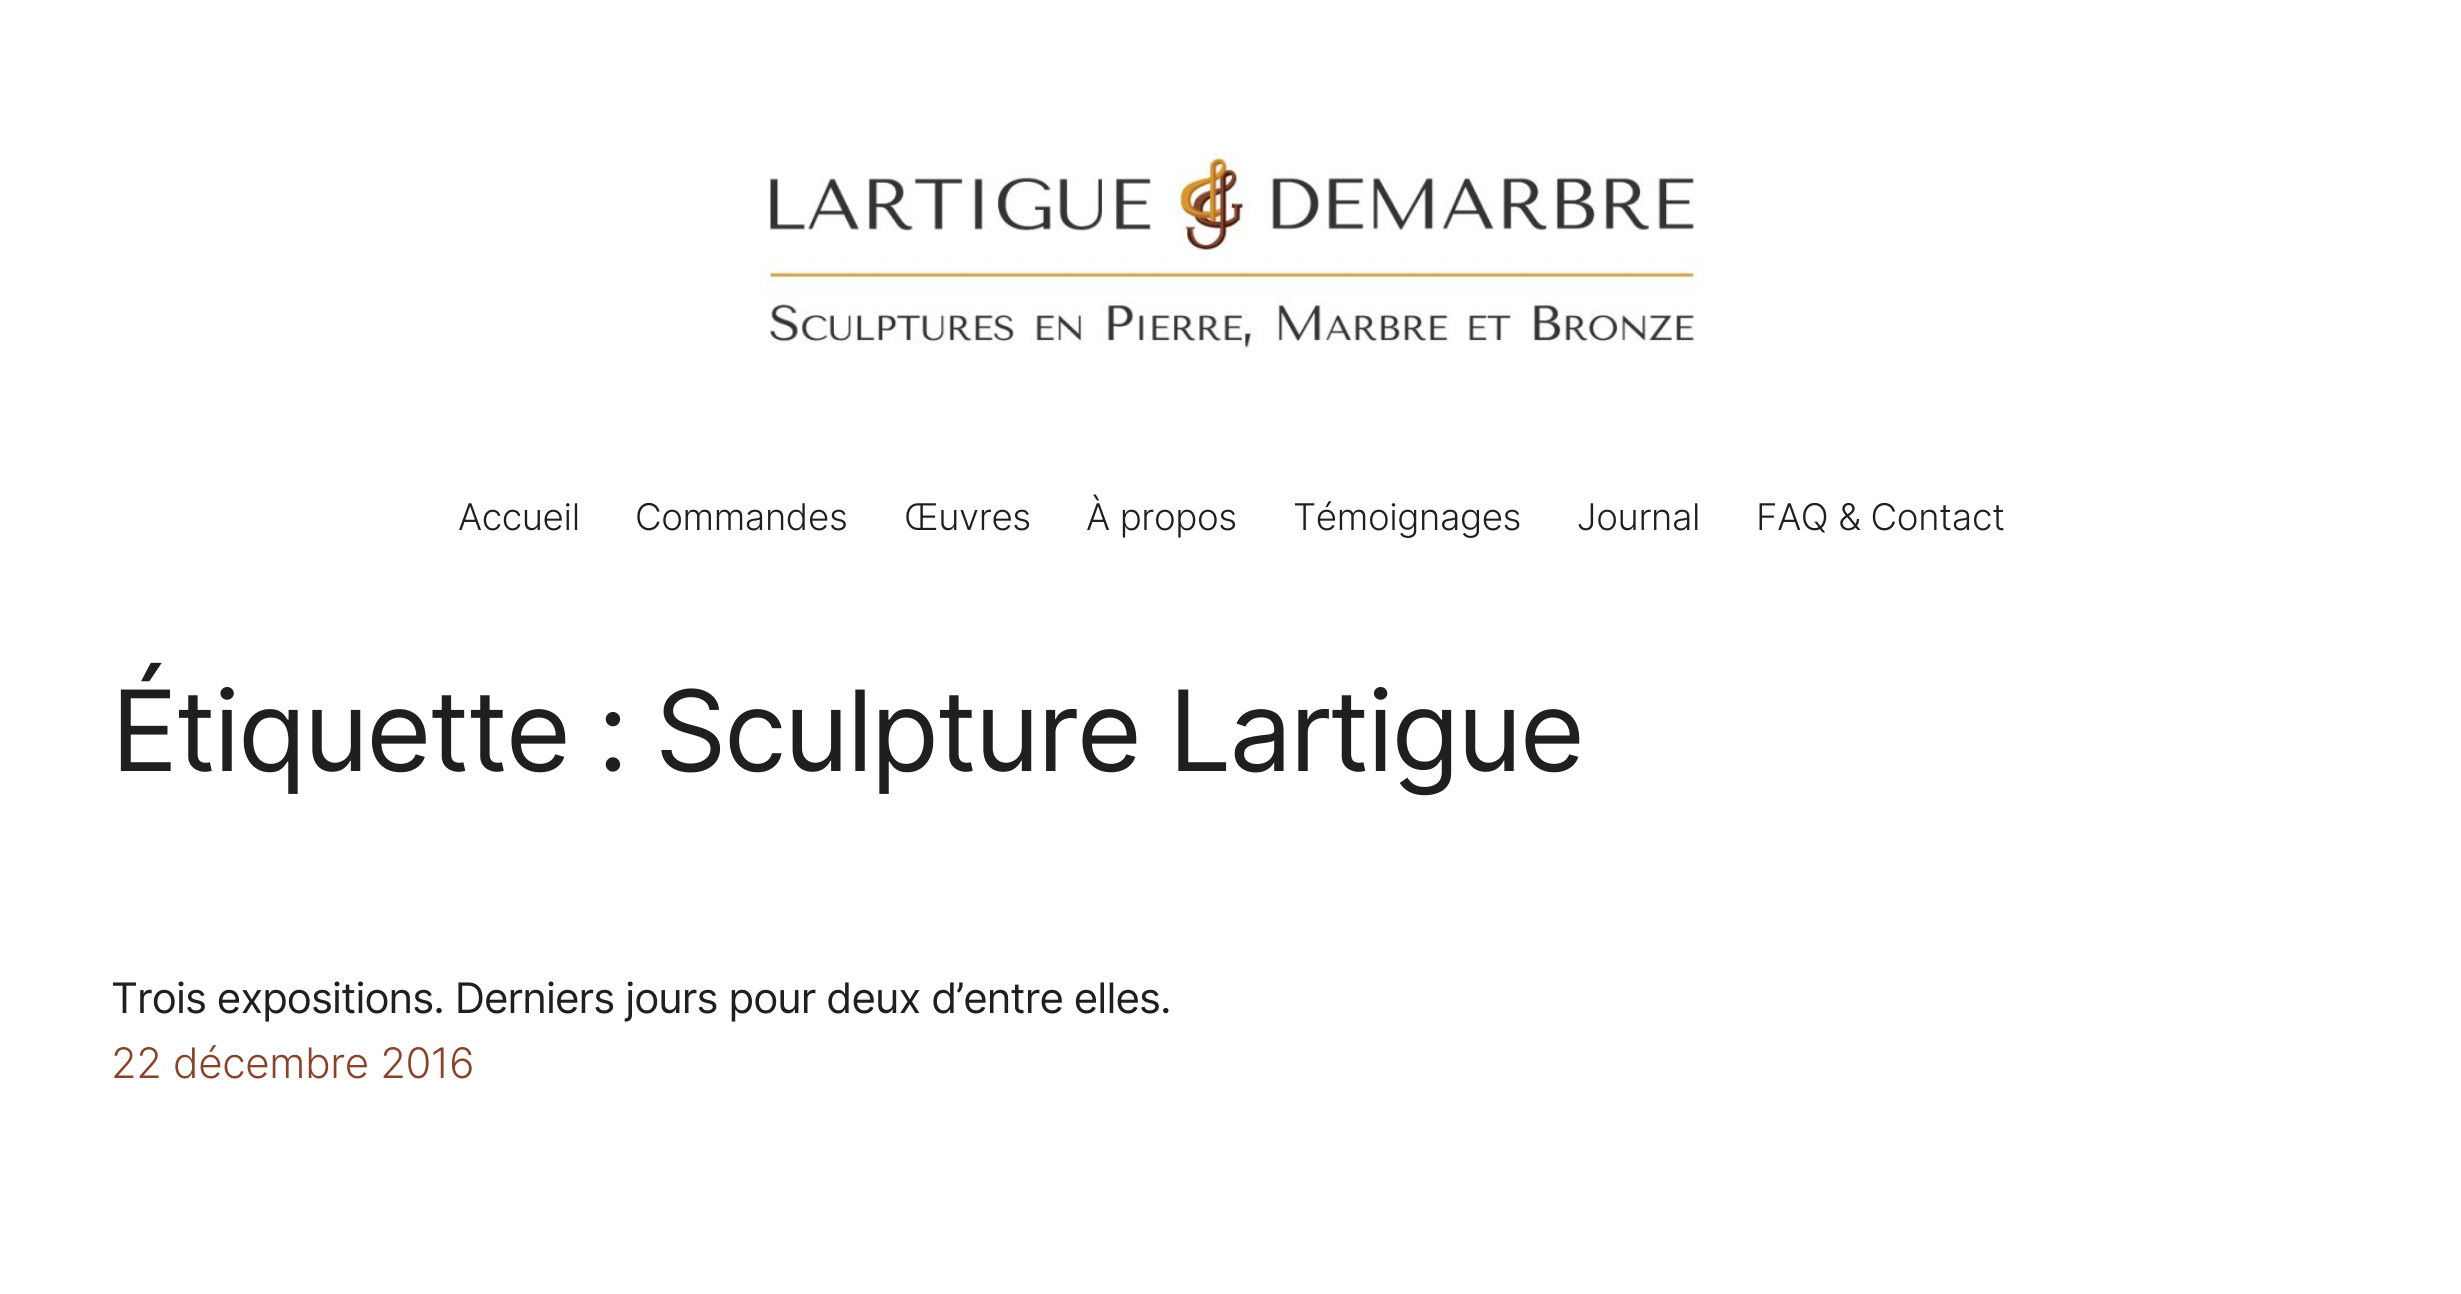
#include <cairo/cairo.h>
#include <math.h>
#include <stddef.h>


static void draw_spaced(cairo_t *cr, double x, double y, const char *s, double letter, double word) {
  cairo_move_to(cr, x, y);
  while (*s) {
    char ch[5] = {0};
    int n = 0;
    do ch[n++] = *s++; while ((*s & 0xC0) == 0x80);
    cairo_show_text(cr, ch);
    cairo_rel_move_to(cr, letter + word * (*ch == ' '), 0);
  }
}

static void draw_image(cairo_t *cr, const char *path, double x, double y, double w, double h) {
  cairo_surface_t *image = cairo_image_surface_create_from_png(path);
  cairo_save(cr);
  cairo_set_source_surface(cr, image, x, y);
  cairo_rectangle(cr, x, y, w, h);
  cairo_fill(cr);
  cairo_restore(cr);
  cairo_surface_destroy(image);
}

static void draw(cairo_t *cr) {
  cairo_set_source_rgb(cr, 1, 1, 1);
  cairo_paint(cr);
  draw_image(cr, "images/1.png", 759, 152, 945, 200);
  cairo_select_font_face(cr, "Inter Light", CAIRO_FONT_SLANT_ITALIC, CAIRO_FONT_WEIGHT_NORMAL);
  cairo_set_font_size(cr, 36.75);
  cairo_set_source_rgb(cr, 29 / 255.0, 32 / 255.0, 31 / 255.0);
  draw_spaced(cr, 458, 530, "Accueil", -0.4, 0);
  draw_spaced(cr, 635, 530, "Commandes", -0.4, 0);
  draw_spaced(cr, 904, 530, "Œuvres", -0.4, 0);
  draw_spaced(cr, 1086, 530, "À propos", -0.4, 0);
  draw_spaced(cr, 1293, 530, "Témoignages", -0.4, 0);
  draw_spaced(cr, 1577, 530, "Journal", -0.4, 0);
  draw_spaced(cr, 1756, 530, "FAQ & Contact", -0.4, 0);
  cairo_select_font_face(cr, "Inter", CAIRO_FONT_SLANT_ITALIC, CAIRO_FONT_WEIGHT_NORMAL);
  cairo_set_font_size(cr, 112);
  draw_spaced(cr, 111, 771, "Étiquette : Sculpture Lartigue", -2.45, 0);
  cairo_set_font_size(cr, 42);
  draw_spaced(cr, 111, 1013, "Trois expositions. Derniers jours pour deux d’entre elles.", -0.92, 0);
  cairo_select_font_face(cr, "Inter Light", CAIRO_FONT_SLANT_ITALIC, CAIRO_FONT_WEIGHT_NORMAL);
  cairo_set_source_rgb(cr, 137 / 255.0, 67 / 255.0, 42 / 255.0);
  draw_spaced(cr, 111, 1078, "22 décembre 2016", -0.4, 0);
}

int main(void) {
  cairo_surface_t *surface = cairo_image_surface_create(CAIRO_FORMAT_RGB24, 2461, 1294);
  cairo_t *cr = cairo_create(surface);
  cairo_font_options_t *options = cairo_font_options_create();
  cairo_font_options_set_hint_metrics(options, CAIRO_HINT_METRICS_OFF);
  cairo_font_options_set_hint_style(options, CAIRO_HINT_STYLE_NONE);
  cairo_set_font_options(cr, options);
  cairo_set_miter_limit(cr, 4);
  draw(cr);
  cairo_surface_write_to_png(surface, "out.png");
  cairo_font_options_destroy(options);
  cairo_destroy(cr);
  cairo_surface_destroy(surface);
  return 0;
}
